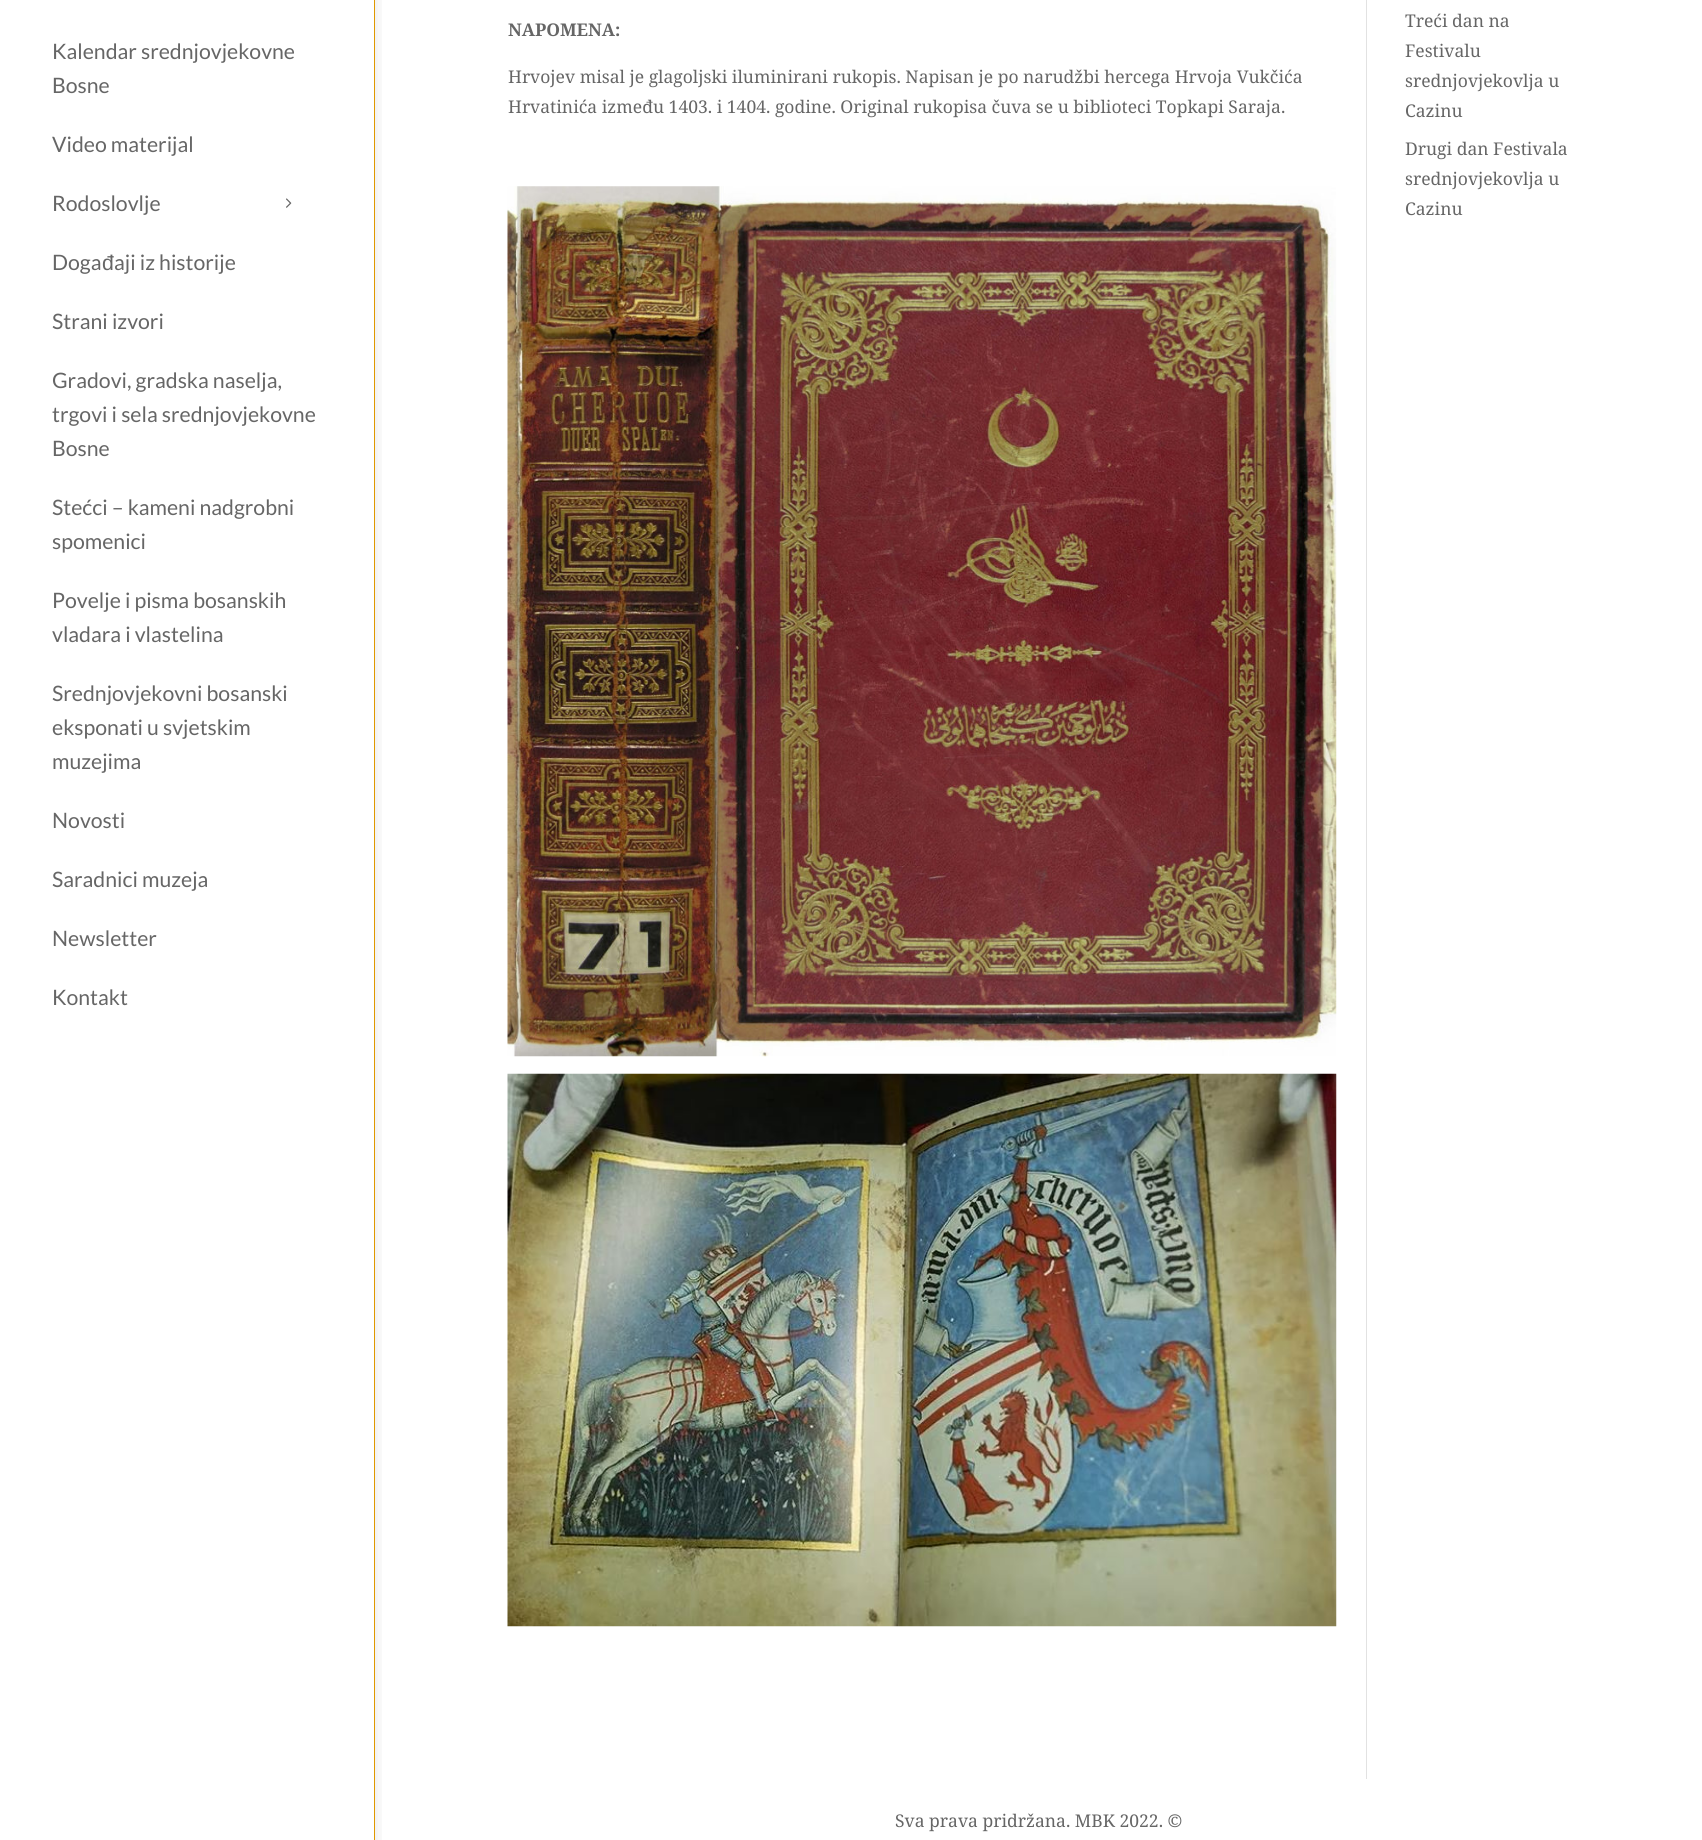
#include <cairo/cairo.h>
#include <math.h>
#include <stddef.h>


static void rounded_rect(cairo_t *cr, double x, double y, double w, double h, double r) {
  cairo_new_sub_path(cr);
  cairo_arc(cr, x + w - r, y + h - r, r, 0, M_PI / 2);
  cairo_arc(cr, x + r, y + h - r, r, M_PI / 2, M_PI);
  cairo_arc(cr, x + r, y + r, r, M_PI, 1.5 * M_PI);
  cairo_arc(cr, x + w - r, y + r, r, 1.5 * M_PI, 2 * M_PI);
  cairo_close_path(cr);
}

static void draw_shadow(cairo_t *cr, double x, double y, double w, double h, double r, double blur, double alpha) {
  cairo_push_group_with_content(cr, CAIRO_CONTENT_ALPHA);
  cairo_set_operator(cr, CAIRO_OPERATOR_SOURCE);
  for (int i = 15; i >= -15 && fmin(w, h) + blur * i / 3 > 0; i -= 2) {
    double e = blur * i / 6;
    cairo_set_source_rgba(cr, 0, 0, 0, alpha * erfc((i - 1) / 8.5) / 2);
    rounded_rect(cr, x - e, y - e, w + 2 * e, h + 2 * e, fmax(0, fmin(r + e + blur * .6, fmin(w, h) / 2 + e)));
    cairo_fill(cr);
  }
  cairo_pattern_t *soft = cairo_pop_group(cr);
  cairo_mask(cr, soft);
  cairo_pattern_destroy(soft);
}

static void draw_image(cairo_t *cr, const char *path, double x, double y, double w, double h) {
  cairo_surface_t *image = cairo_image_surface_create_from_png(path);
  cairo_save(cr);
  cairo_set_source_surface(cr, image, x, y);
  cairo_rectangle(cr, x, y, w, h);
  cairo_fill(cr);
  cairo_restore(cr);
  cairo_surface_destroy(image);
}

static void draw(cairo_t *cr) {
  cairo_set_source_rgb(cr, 1, 1, 1);
  cairo_paint(cr);
  cairo_save(cr);
  cairo_rectangle(cr, 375, 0, 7, 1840);
  cairo_clip(cr);
  cairo_set_source_rgb(cr, 0, 0, 0);
  draw_shadow(cr, 13, -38, 350, 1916, 0, 12.5, 0.3);
  cairo_restore(cr);
  cairo_set_source_rgb(cr, 224 / 255.0, 153 / 255.0, 0);
  cairo_rectangle(cr, 374, 0, 1, 1840);
  cairo_fill(cr);
  draw_image(cr, "images/1.png", 286, 198, 6, 10);
  cairo_set_source_rgb(cr, 226 / 255.0, 226 / 255.0, 226 / 255.0);
  cairo_rectangle(cr, 1366, 0, 1, 1779);
  cairo_fill(cr);
  draw_image(cr, "images/2.png", 507, 186, 830, 871);
  draw_image(cr, "images/3.png", 507, 1073, 830, 554);
  cairo_select_font_face(cr, "Lato", CAIRO_FONT_SLANT_NORMAL, CAIRO_FONT_WEIGHT_NORMAL);
  cairo_set_font_size(cr, 21.25);
  cairo_set_source_rgb(cr, 102 / 255.0, 102 / 255.0, 102 / 255.0);
  cairo_move_to(cr, 52, 59);
  cairo_show_text(cr, "Kalendar srednjovjekovne");
  cairo_move_to(cr, 52, 93);
  cairo_show_text(cr, "Bosne");
  cairo_move_to(cr, 52, 152);
  cairo_show_text(cr, "Video materijal");
  cairo_move_to(cr, 52, 211);
  cairo_show_text(cr, "Rodoslovlje");
  cairo_move_to(cr, 52, 270);
  cairo_show_text(cr, "Doga");
  cairo_select_font_face(cr, "Liberation Sans", CAIRO_FONT_SLANT_NORMAL, CAIRO_FONT_WEIGHT_NORMAL);
  cairo_move_to(cr, 102, 270);
  cairo_show_text(cr, "đ");
  cairo_select_font_face(cr, "Lato", CAIRO_FONT_SLANT_NORMAL, CAIRO_FONT_WEIGHT_NORMAL);
  cairo_move_to(cr, 114, 270);
  cairo_show_text(cr, "aji iz historije");
  cairo_move_to(cr, 52, 329);
  cairo_show_text(cr, "Strani izvori");
  cairo_move_to(cr, 52, 388);
  cairo_show_text(cr, "Gradovi, gradska naselja,");
  cairo_move_to(cr, 52, 422);
  cairo_show_text(cr, "trgovi i sela srednjovjekovne");
  cairo_move_to(cr, 52, 456);
  cairo_show_text(cr, "Bosne");
  cairo_move_to(cr, 52, 515);
  cairo_show_text(cr, "Stećci – kameni nadgrobni");
  cairo_move_to(cr, 52, 549);
  cairo_show_text(cr, "spomenici");
  cairo_move_to(cr, 52, 608);
  cairo_show_text(cr, "Povelje i pisma bosanskih");
  cairo_move_to(cr, 52, 642);
  cairo_show_text(cr, "vladara i vlastelina");
  cairo_move_to(cr, 52, 701);
  cairo_show_text(cr, "Srednjovjekovni bosanski");
  cairo_move_to(cr, 52, 735);
  cairo_show_text(cr, "eksponati u svjetskim");
  cairo_move_to(cr, 52, 769);
  cairo_show_text(cr, "muzejima");
  cairo_move_to(cr, 52, 828);
  cairo_show_text(cr, "Novosti");
  cairo_move_to(cr, 52, 887);
  cairo_show_text(cr, "Saradnici muzeja");
  cairo_move_to(cr, 52, 946);
  cairo_show_text(cr, "Newsletter");
  cairo_move_to(cr, 52, 1005);
  cairo_show_text(cr, "Kontakt");
  cairo_select_font_face(cr, "Noto Serif", CAIRO_FONT_SLANT_NORMAL, CAIRO_FONT_WEIGHT_BOLD);
  cairo_set_font_size(cr, 17.5);
  cairo_move_to(cr, 508, 36);
  cairo_show_text(cr, "NAPOMENA:");
  cairo_select_font_face(cr, "Noto Serif", CAIRO_FONT_SLANT_NORMAL, CAIRO_FONT_WEIGHT_NORMAL);
  cairo_move_to(cr, 508, 83);
  cairo_show_text(cr, "Hrvojev misal je glagoljski iluminirani rukopis. Napisan je po narudžbi hercega Hrvoja Vukčića");
  cairo_move_to(cr, 508, 113);
  cairo_show_text(cr, "Hrvatinića između 1403. i 1404. godine. Original rukopisa čuva se u biblioteci Topkapi Saraja.");
  cairo_move_to(cr, 1405, 27);
  cairo_show_text(cr, "Treći dan na");
  cairo_move_to(cr, 1405, 57);
  cairo_show_text(cr, "Festivalu");
  cairo_move_to(cr, 1405, 87);
  cairo_show_text(cr, "srednjovjekovlja u");
  cairo_move_to(cr, 1405, 117);
  cairo_show_text(cr, "Cazinu");
  cairo_move_to(cr, 1405, 155);
  cairo_show_text(cr, "Drugi dan Festivala");
  cairo_move_to(cr, 1405, 185);
  cairo_show_text(cr, "srednjovjekovlja u");
  cairo_move_to(cr, 1405, 215);
  cairo_show_text(cr, "Cazinu");
  cairo_move_to(cr, 895, 1827);
  cairo_show_text(cr, "Sva prava pridržana. MBK 2022. ©");
}

int main(void) {
  cairo_surface_t *surface = cairo_image_surface_create(CAIRO_FORMAT_RGB24, 1702, 1840);
  cairo_t *cr = cairo_create(surface);
  cairo_font_options_t *options = cairo_font_options_create();
  cairo_font_options_set_hint_metrics(options, CAIRO_HINT_METRICS_OFF);
  cairo_font_options_set_hint_style(options, CAIRO_HINT_STYLE_NONE);
  cairo_set_font_options(cr, options);
  cairo_set_miter_limit(cr, 4);
  draw(cr);
  cairo_surface_write_to_png(surface, "out.png");
  cairo_font_options_destroy(options);
  cairo_destroy(cr);
  cairo_surface_destroy(surface);
  return 0;
}
